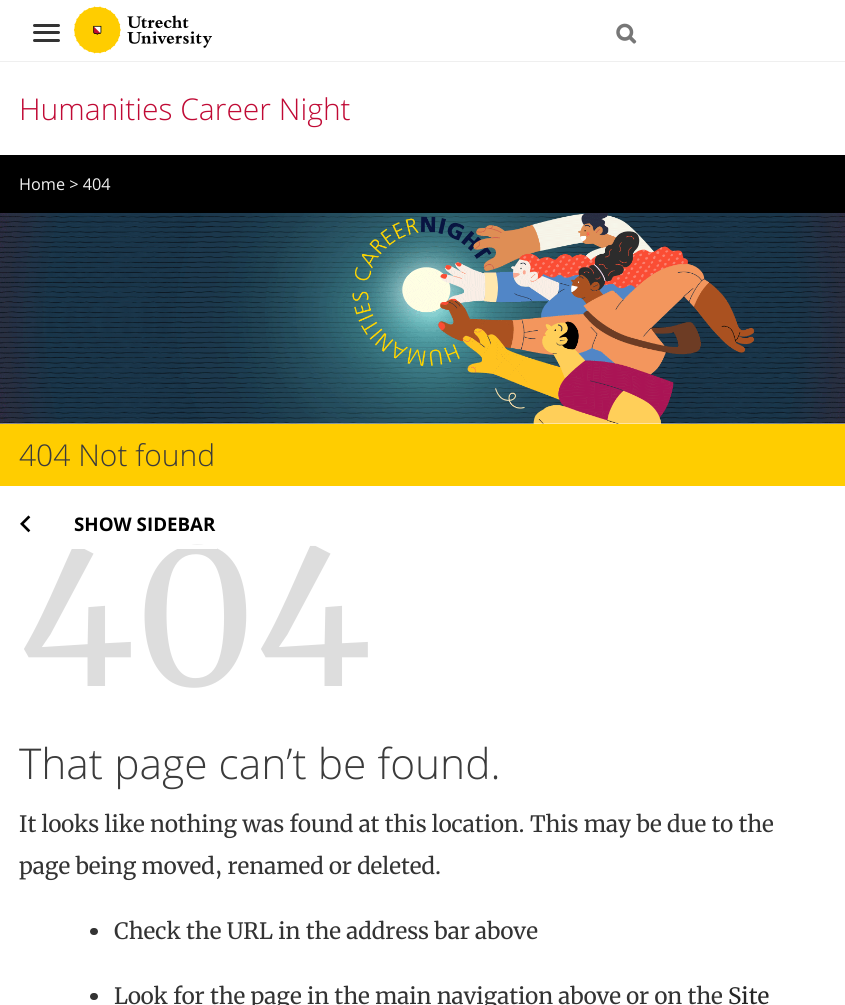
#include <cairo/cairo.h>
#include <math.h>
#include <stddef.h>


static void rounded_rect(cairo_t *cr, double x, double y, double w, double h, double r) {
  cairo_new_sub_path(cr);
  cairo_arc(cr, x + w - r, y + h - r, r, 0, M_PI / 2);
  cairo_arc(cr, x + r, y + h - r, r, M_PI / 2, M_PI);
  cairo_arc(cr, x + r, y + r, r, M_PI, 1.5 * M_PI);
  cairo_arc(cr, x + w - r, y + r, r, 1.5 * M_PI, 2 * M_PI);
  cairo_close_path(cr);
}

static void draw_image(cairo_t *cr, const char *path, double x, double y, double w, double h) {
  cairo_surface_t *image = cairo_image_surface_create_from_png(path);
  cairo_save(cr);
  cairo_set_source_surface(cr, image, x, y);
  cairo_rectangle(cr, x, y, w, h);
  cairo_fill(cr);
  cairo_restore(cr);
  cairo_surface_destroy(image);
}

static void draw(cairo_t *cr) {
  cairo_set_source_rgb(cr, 1, 1, 1);
  cairo_paint(cr);
  cairo_set_source_rgb(cr, 239 / 255.0, 239 / 255.0, 239 / 255.0);
  cairo_rectangle(cr, 0, 61, 845, 1);
  cairo_fill(cr);
  cairo_set_source_rgb(cr, 51 / 255.0, 51 / 255.0, 51 / 255.0);
  rounded_rect(cr, 33, 24, 27, 3, 1.5);
  cairo_fill(cr);
  rounded_rect(cr, 33, 31, 27, 3, 1.5);
  cairo_fill(cr);
  rounded_rect(cr, 33, 39, 27, 3, 1.5);
  cairo_fill(cr);
  draw_image(cr, "images/1.png", 74, 6, 138, 48);
  draw_image(cr, "images/2.png", 616, 23, 21, 21);
  cairo_set_source_rgb(cr, 0, 0, 0);
  cairo_rectangle(cr, 0, 155, 845, 58);
  cairo_fill(cr);
  draw_image(cr, "images/3.png", 0, 213, 845, 211);
  cairo_set_source_rgb(cr, 1, 205 / 255.0, 0);
  cairo_rectangle(cr, 0, 424, 845, 62);
  cairo_fill(cr);
  draw_image(cr, "images/4.png", 20, 515, 11, 18);
  cairo_set_source_rgb(cr, 51 / 255.0, 51 / 255.0, 51 / 255.0);
  rounded_rect(cr, 90, 928, 8, 7, 3.5);
  cairo_fill(cr);
  rounded_rect(cr, 90, 993, 8, 7, 3.5);
  cairo_fill(cr);
  cairo_select_font_face(cr, "Open Sans Light", CAIRO_FONT_SLANT_NORMAL, CAIRO_FONT_WEIGHT_NORMAL);
  cairo_set_font_size(cr, 30);
  cairo_set_source_rgb(cr, 192 / 255.0, 10 / 255.0, 53 / 255.0);
  cairo_move_to(cr, 19, 120);
  cairo_show_text(cr, "Humanities Career Night");
  cairo_select_font_face(cr, "Open Sans", CAIRO_FONT_SLANT_NORMAL, CAIRO_FONT_WEIGHT_NORMAL);
  cairo_set_font_size(cr, 16.25);
  cairo_set_source_rgb(cr, 239 / 255.0, 239 / 255.0, 239 / 255.0);
  cairo_move_to(cr, 19, 190);
  cairo_show_text(cr, "Home > 404");
  cairo_select_font_face(cr, "Open Sans Light", CAIRO_FONT_SLANT_NORMAL, CAIRO_FONT_WEIGHT_NORMAL);
  cairo_set_font_size(cr, 30);
  cairo_set_source_rgb(cr, 59 / 255.0, 59 / 255.0, 59 / 255.0);
  cairo_move_to(cr, 19, 466);
  cairo_show_text(cr, "404 Not found");
  cairo_select_font_face(cr, "Open Sans", CAIRO_FONT_SLANT_NORMAL, CAIRO_FONT_WEIGHT_BOLD);
  cairo_set_font_size(cr, 18.75);
  cairo_set_source_rgb(cr, 0, 0, 0);
  cairo_move_to(cr, 74, 531);
  cairo_show_text(cr, "SHOW SIDEBAR");
  cairo_select_font_face(cr, "Merriweather", CAIRO_FONT_SLANT_NORMAL, CAIRO_FONT_WEIGHT_NORMAL);
  cairo_set_font_size(cr, 188);
  cairo_set_source_rgb(cr, 221 / 255.0, 221 / 255.0, 221 / 255.0);
  cairo_move_to(cr, 19, 686);
  cairo_show_text(cr, "404");
  cairo_set_source_rgb(cr, 1, 1, 1);
  cairo_rectangle(cr, 71, 545, 146, 4);
  cairo_fill(cr);
  cairo_select_font_face(cr, "Open Sans Light", CAIRO_FONT_SLANT_NORMAL, CAIRO_FONT_WEIGHT_NORMAL);
  cairo_set_font_size(cr, 42.5);
  cairo_set_source_rgb(cr, 59 / 255.0, 59 / 255.0, 59 / 255.0);
  cairo_move_to(cr, 19, 779);
  cairo_show_text(cr, "That page can’t be found.");
  cairo_select_font_face(cr, "Merriweather", CAIRO_FONT_SLANT_NORMAL, CAIRO_FONT_WEIGHT_NORMAL);
  cairo_set_font_size(cr, 22.5);
  cairo_set_source_rgb(cr, 51 / 255.0, 51 / 255.0, 51 / 255.0);
  cairo_move_to(cr, 19, 832);
  cairo_show_text(cr, "It looks like nothing was found at this location. This may be due to the");
  cairo_move_to(cr, 19, 874);
  cairo_show_text(cr, "page being moved, renamed or deleted.");
  cairo_move_to(cr, 114, 939);
  cairo_show_text(cr, "Check the URL in the address bar above");
  cairo_move_to(cr, 114, 1004);
  cairo_show_text(cr, "Look for the page in the main navigation above or on the");
  cairo_set_source_rgb(cr, 38 / 255.0, 38 / 255.0, 38 / 255.0);
  cairo_move_to(cr, 728, 1004);
  cairo_show_text(cr, "Site");
}

int main(void) {
  cairo_surface_t *surface = cairo_image_surface_create(CAIRO_FORMAT_RGB24, 845, 1005);
  cairo_t *cr = cairo_create(surface);
  cairo_font_options_t *options = cairo_font_options_create();
  cairo_font_options_set_hint_metrics(options, CAIRO_HINT_METRICS_OFF);
  cairo_font_options_set_hint_style(options, CAIRO_HINT_STYLE_NONE);
  cairo_set_font_options(cr, options);
  cairo_set_miter_limit(cr, 4);
  draw(cr);
  cairo_surface_write_to_png(surface, "out.png");
  cairo_font_options_destroy(options);
  cairo_destroy(cr);
  cairo_surface_destroy(surface);
  return 0;
}
